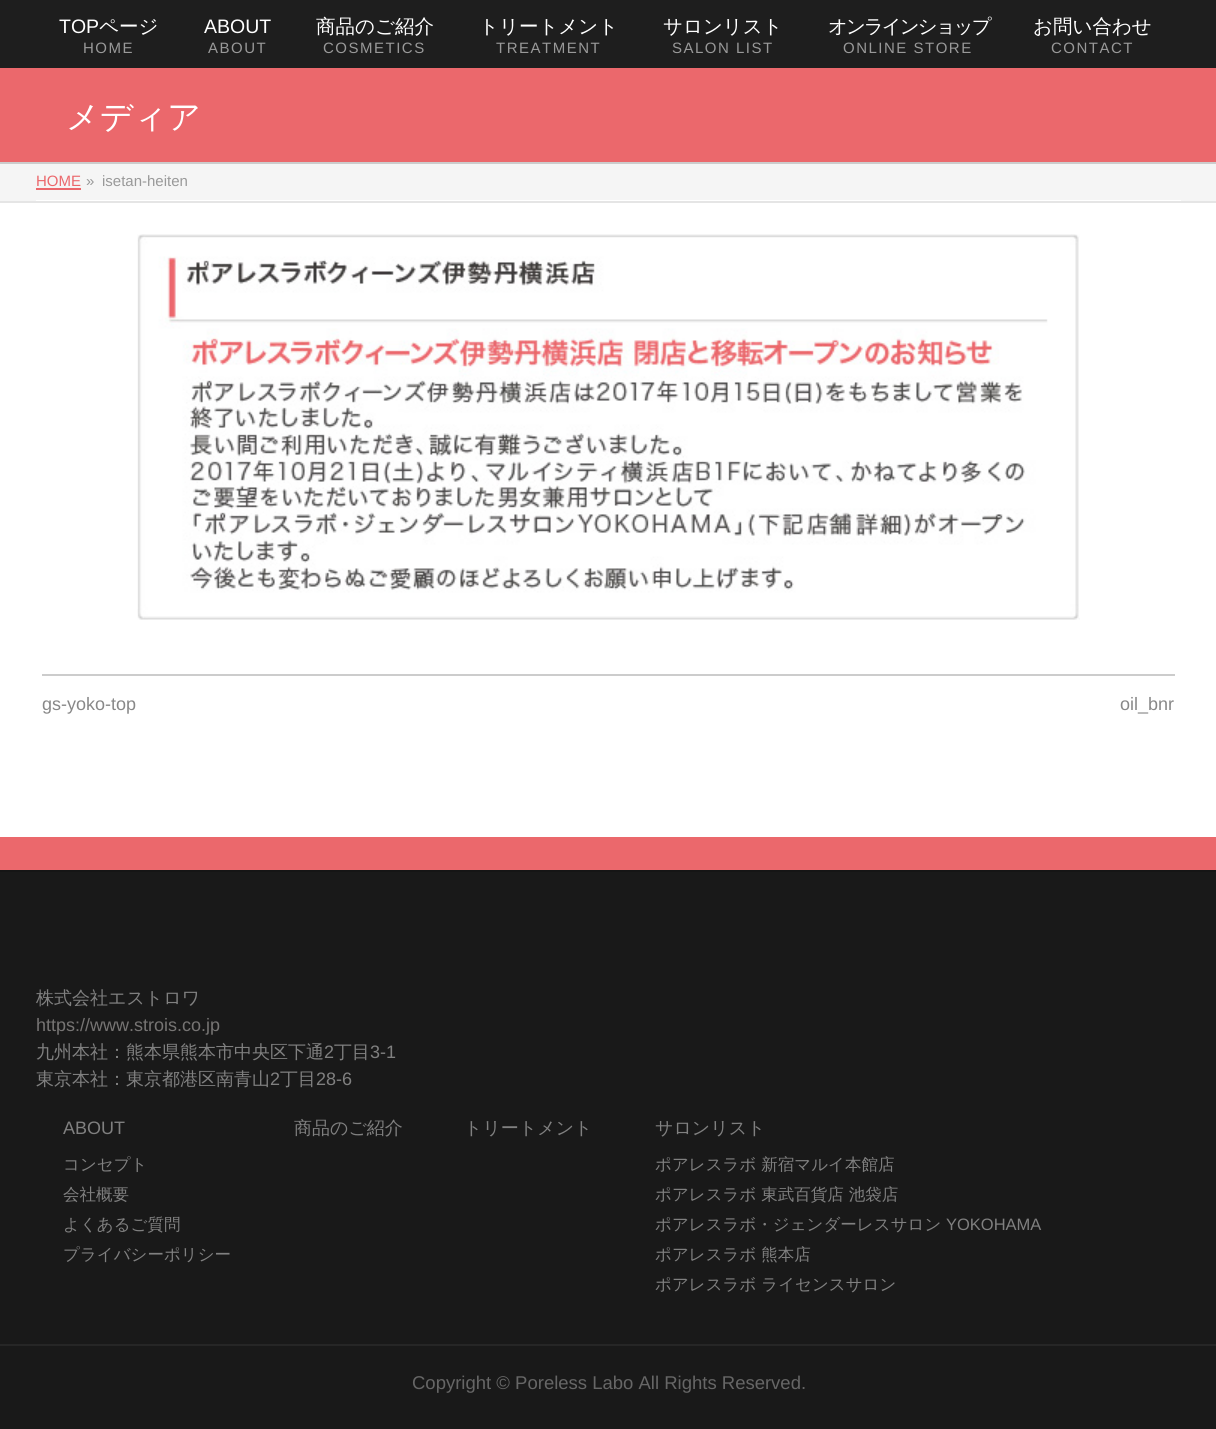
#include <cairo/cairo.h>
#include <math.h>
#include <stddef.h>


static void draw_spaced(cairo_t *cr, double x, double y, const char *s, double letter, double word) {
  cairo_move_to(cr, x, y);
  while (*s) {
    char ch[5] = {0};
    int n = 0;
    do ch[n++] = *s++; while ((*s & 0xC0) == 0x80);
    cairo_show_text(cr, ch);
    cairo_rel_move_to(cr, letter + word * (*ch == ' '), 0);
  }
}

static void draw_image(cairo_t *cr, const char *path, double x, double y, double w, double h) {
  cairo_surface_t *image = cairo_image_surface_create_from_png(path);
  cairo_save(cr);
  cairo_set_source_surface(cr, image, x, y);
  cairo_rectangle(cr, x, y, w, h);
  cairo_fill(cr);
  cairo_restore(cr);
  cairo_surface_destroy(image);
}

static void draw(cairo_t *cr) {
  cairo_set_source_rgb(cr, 1, 1, 1);
  cairo_paint(cr);
  cairo_set_source_rgb(cr, 30 / 255.0, 30 / 255.0, 30 / 255.0);
  cairo_rectangle(cr, 0, 0, 1216, 68);
  cairo_fill(cr);
  cairo_set_source_rgb(cr, 235 / 255.0, 104 / 255.0, 108 / 255.0);
  cairo_rectangle(cr, 0, 68, 1216, 94);
  cairo_fill(cr);
  cairo_set_source_rgb(cr, 204 / 255.0, 204 / 255.0, 204 / 255.0);
  cairo_rectangle(cr, 0, 162, 1216, 2);
  cairo_fill(cr);
  cairo_set_source_rgb(cr, 245 / 255.0, 245 / 255.0, 245 / 255.0);
  cairo_rectangle(cr, 0, 164, 1216, 37);
  cairo_fill(cr);
  cairo_set_source_rgb(cr, 229 / 255.0, 229 / 255.0, 229 / 255.0);
  cairo_rectangle(cr, 0, 201, 1216, 2);
  cairo_fill(cr);
  cairo_set_source_rgb(cr, 1, 1, 1);
  cairo_rectangle(cr, 36, 200, 1145, 1);
  cairo_fill(cr);
  cairo_set_source_rgb(cr, 235 / 255.0, 104 / 255.0, 108 / 255.0);
  cairo_rectangle(cr, 36, 188, 45, 2);
  cairo_fill(cr);
  draw_image(cr, "images/1.png", 137, 234, 943, 386);
  cairo_set_source_rgb(cr, 204 / 255.0, 204 / 255.0, 204 / 255.0);
  cairo_rectangle(cr, 42, 674, 1133, 2);
  cairo_fill(cr);
  cairo_set_source_rgb(cr, 235 / 255.0, 104 / 255.0, 108 / 255.0);
  cairo_rectangle(cr, 0, 837, 1216, 33);
  cairo_fill(cr);
  cairo_set_source_rgb(cr, 25 / 255.0, 25 / 255.0, 25 / 255.0);
  cairo_rectangle(cr, 0, 872, 1216, 472);
  cairo_fill(cr);
  cairo_set_source_rgb(cr, 21 / 255.0, 21 / 255.0, 21 / 255.0);
  cairo_rectangle(cr, 0, 870, 1216, 2);
  cairo_fill(cr);
  cairo_set_source_rgb(cr, 25 / 255.0, 25 / 255.0, 25 / 255.0);
  cairo_rectangle(cr, 0, 1346, 1216, 83);
  cairo_fill(cr);
  cairo_set_source_rgb(cr, 38 / 255.0, 38 / 255.0, 38 / 255.0);
  cairo_rectangle(cr, 0, 1344, 1216, 2);
  cairo_fill(cr);
  cairo_select_font_face(cr, "Liberation Sans", CAIRO_FONT_SLANT_NORMAL, CAIRO_FONT_WEIGHT_NORMAL);
  cairo_set_font_size(cr, 19.5);
  cairo_set_source_rgb(cr, 1, 1, 1);
  cairo_move_to(cr, 59, 33);
  cairo_show_text(cr, "TOP");
  cairo_select_font_face(cr, "WenQuanYi Zen Hei Medium", CAIRO_FONT_SLANT_NORMAL, CAIRO_FONT_WEIGHT_NORMAL);
  cairo_move_to(cr, 99, 33);
  cairo_show_text(cr, "ページ");
  cairo_select_font_face(cr, "Liberation Sans", CAIRO_FONT_SLANT_NORMAL, CAIRO_FONT_WEIGHT_NORMAL);
  cairo_set_font_size(cr, 15);
  cairo_set_source_rgb(cr, 153 / 255.0, 153 / 255.0, 153 / 255.0);
  draw_spaced(cr, 83, 53, "HOME", 1.5, 0);
  cairo_set_font_size(cr, 19.5);
  cairo_set_source_rgb(cr, 1, 1, 1);
  cairo_move_to(cr, 204, 33);
  cairo_show_text(cr, "ABOUT");
  cairo_set_font_size(cr, 15);
  cairo_set_source_rgb(cr, 153 / 255.0, 153 / 255.0, 153 / 255.0);
  draw_spaced(cr, 208, 53, "ABOUT", 1.5, 0);
  cairo_select_font_face(cr, "WenQuanYi Zen Hei Medium", CAIRO_FONT_SLANT_NORMAL, CAIRO_FONT_WEIGHT_NORMAL);
  cairo_set_font_size(cr, 19.5);
  cairo_set_source_rgb(cr, 1, 1, 1);
  cairo_move_to(cr, 316, 33);
  cairo_show_text(cr, "商品のご紹介");
  cairo_select_font_face(cr, "Liberation Sans", CAIRO_FONT_SLANT_NORMAL, CAIRO_FONT_WEIGHT_NORMAL);
  cairo_set_font_size(cr, 15);
  cairo_set_source_rgb(cr, 153 / 255.0, 153 / 255.0, 153 / 255.0);
  draw_spaced(cr, 323, 53, "COSMETICS", 1.5, 0);
  cairo_select_font_face(cr, "WenQuanYi Zen Hei Medium", CAIRO_FONT_SLANT_NORMAL, CAIRO_FONT_WEIGHT_NORMAL);
  cairo_set_font_size(cr, 19.5);
  cairo_set_source_rgb(cr, 1, 1, 1);
  cairo_move_to(cr, 479, 33);
  cairo_show_text(cr, "トリートメント");
  cairo_select_font_face(cr, "Liberation Sans", CAIRO_FONT_SLANT_NORMAL, CAIRO_FONT_WEIGHT_NORMAL);
  cairo_set_font_size(cr, 15);
  cairo_set_source_rgb(cr, 153 / 255.0, 153 / 255.0, 153 / 255.0);
  draw_spaced(cr, 496, 53, "TREATMENT", 1.5, 0);
  cairo_select_font_face(cr, "WenQuanYi Zen Hei Medium", CAIRO_FONT_SLANT_NORMAL, CAIRO_FONT_WEIGHT_NORMAL);
  cairo_set_font_size(cr, 19.5);
  cairo_set_source_rgb(cr, 1, 1, 1);
  cairo_move_to(cr, 663, 33);
  cairo_show_text(cr, "サロンリスト");
  cairo_select_font_face(cr, "Liberation Sans", CAIRO_FONT_SLANT_NORMAL, CAIRO_FONT_WEIGHT_NORMAL);
  cairo_set_font_size(cr, 15);
  cairo_set_source_rgb(cr, 153 / 255.0, 153 / 255.0, 153 / 255.0);
  draw_spaced(cr, 672, 53, "SALON LIST", 1.5, 0);
  cairo_select_font_face(cr, "WenQuanYi Zen Hei Medium", CAIRO_FONT_SLANT_NORMAL, CAIRO_FONT_WEIGHT_NORMAL);
  cairo_set_font_size(cr, 19.5);
  cairo_set_source_rgb(cr, 1, 1, 1);
  draw_spaced(cr, 828, 33, "オンラインショップ", -2, 0);
  cairo_select_font_face(cr, "Liberation Sans", CAIRO_FONT_SLANT_NORMAL, CAIRO_FONT_WEIGHT_NORMAL);
  cairo_set_font_size(cr, 15);
  cairo_set_source_rgb(cr, 153 / 255.0, 153 / 255.0, 153 / 255.0);
  draw_spaced(cr, 843, 53, "ONLINE STORE", 1.5, 0);
  cairo_select_font_face(cr, "WenQuanYi Zen Hei Medium", CAIRO_FONT_SLANT_NORMAL, CAIRO_FONT_WEIGHT_NORMAL);
  cairo_set_font_size(cr, 19.5);
  cairo_set_source_rgb(cr, 1, 1, 1);
  cairo_move_to(cr, 1033, 33);
  cairo_show_text(cr, "お問い合わせ");
  cairo_select_font_face(cr, "Liberation Sans", CAIRO_FONT_SLANT_NORMAL, CAIRO_FONT_WEIGHT_NORMAL);
  cairo_set_font_size(cr, 15);
  cairo_set_source_rgb(cr, 153 / 255.0, 153 / 255.0, 153 / 255.0);
  draw_spaced(cr, 1051, 53, "CONTACT", 1.5, 0);
  cairo_select_font_face(cr, "WenQuanYi Zen Hei Medium", CAIRO_FONT_SLANT_NORMAL, CAIRO_FONT_WEIGHT_NORMAL);
  cairo_set_font_size(cr, 33);
  cairo_set_source_rgb(cr, 1, 1, 1);
  cairo_move_to(cr, 66, 128);
  cairo_show_text(cr, "メディア");
  cairo_select_font_face(cr, "Liberation Sans", CAIRO_FONT_SLANT_NORMAL, CAIRO_FONT_WEIGHT_NORMAL);
  cairo_set_font_size(cr, 15);
  cairo_set_source_rgb(cr, 235 / 255.0, 104 / 255.0, 108 / 255.0);
  cairo_move_to(cr, 36, 186);
  cairo_show_text(cr, "HOME");
  cairo_set_source_rgb(cr, 153 / 255.0, 153 / 255.0, 153 / 255.0);
  cairo_move_to(cr, 86, 186);
  cairo_show_text(cr, "»");
  cairo_move_to(cr, 102, 186);
  cairo_show_text(cr, "isetan-heiten");
  cairo_set_font_size(cr, 18);
  cairo_set_source_rgb(cr, 136 / 255.0, 136 / 255.0, 136 / 255.0);
  cairo_move_to(cr, 42, 710);
  cairo_show_text(cr, "gs-yoko-top");
  cairo_move_to(cr, 1120, 710);
  cairo_show_text(cr, "oil_bnr");
  cairo_select_font_face(cr, "WenQuanYi Zen Hei Medium", CAIRO_FONT_SLANT_NORMAL, CAIRO_FONT_WEIGHT_NORMAL);
  cairo_set_source_rgb(cr, 128 / 255.0, 128 / 255.0, 128 / 255.0);
  cairo_move_to(cr, 36, 1004);
  cairo_show_text(cr, "株式会社エストロワ");
  cairo_select_font_face(cr, "Liberation Sans", CAIRO_FONT_SLANT_NORMAL, CAIRO_FONT_WEIGHT_NORMAL);
  cairo_set_source_rgb(cr, 118 / 255.0, 116 / 255.0, 115 / 255.0);
  cairo_move_to(cr, 36, 1031);
  cairo_show_text(cr, "https://www.strois.co.jp");
  cairo_select_font_face(cr, "WenQuanYi Zen Hei Medium", CAIRO_FONT_SLANT_NORMAL, CAIRO_FONT_WEIGHT_NORMAL);
  cairo_set_source_rgb(cr, 128 / 255.0, 128 / 255.0, 128 / 255.0);
  cairo_move_to(cr, 36, 1058);
  cairo_show_text(cr, "九州本社：熊本県熊本市中央区下通");
  cairo_select_font_face(cr, "Liberation Sans", CAIRO_FONT_SLANT_NORMAL, CAIRO_FONT_WEIGHT_NORMAL);
  cairo_move_to(cr, 324, 1058);
  cairo_show_text(cr, "2");
  cairo_select_font_face(cr, "WenQuanYi Zen Hei Medium", CAIRO_FONT_SLANT_NORMAL, CAIRO_FONT_WEIGHT_NORMAL);
  cairo_move_to(cr, 334, 1058);
  cairo_show_text(cr, "丁目");
  cairo_select_font_face(cr, "Liberation Sans", CAIRO_FONT_SLANT_NORMAL, CAIRO_FONT_WEIGHT_NORMAL);
  cairo_move_to(cr, 370, 1058);
  cairo_show_text(cr, "3-1");
  cairo_select_font_face(cr, "WenQuanYi Zen Hei Medium", CAIRO_FONT_SLANT_NORMAL, CAIRO_FONT_WEIGHT_NORMAL);
  cairo_move_to(cr, 36, 1085);
  cairo_show_text(cr, "東京本社：東京都港区南青山");
  cairo_select_font_face(cr, "Liberation Sans", CAIRO_FONT_SLANT_NORMAL, CAIRO_FONT_WEIGHT_NORMAL);
  cairo_move_to(cr, 270, 1085);
  cairo_show_text(cr, "2");
  cairo_select_font_face(cr, "WenQuanYi Zen Hei Medium", CAIRO_FONT_SLANT_NORMAL, CAIRO_FONT_WEIGHT_NORMAL);
  cairo_move_to(cr, 280, 1085);
  cairo_show_text(cr, "丁目");
  cairo_select_font_face(cr, "Liberation Sans", CAIRO_FONT_SLANT_NORMAL, CAIRO_FONT_WEIGHT_NORMAL);
  cairo_move_to(cr, 316, 1085);
  cairo_show_text(cr, "28-6");
  cairo_move_to(cr, 63, 1134);
  cairo_show_text(cr, "ABOUT");
  cairo_select_font_face(cr, "WenQuanYi Zen Hei Medium", CAIRO_FONT_SLANT_NORMAL, CAIRO_FONT_WEIGHT_NORMAL);
  cairo_set_font_size(cr, 16.5);
  cairo_move_to(cr, 63, 1170);
  cairo_show_text(cr, "コンセプト");
  cairo_move_to(cr, 63, 1200);
  cairo_show_text(cr, "会社概要");
  cairo_move_to(cr, 63, 1230);
  cairo_show_text(cr, "よくあるご質問");
  cairo_move_to(cr, 63, 1260);
  cairo_show_text(cr, "プライバシーポリシー");
  cairo_set_font_size(cr, 18);
  cairo_move_to(cr, 294, 1134);
  cairo_show_text(cr, "商品のご紹介");
  cairo_move_to(cr, 464, 1134);
  cairo_show_text(cr, "トリートメント");
  cairo_move_to(cr, 655, 1134);
  cairo_show_text(cr, "サロンリスト");
  cairo_set_font_size(cr, 16.5);
  cairo_move_to(cr, 655, 1170);
  cairo_show_text(cr, "ポアレスラボ 新宿マルイ本館店");
  cairo_move_to(cr, 655, 1200);
  cairo_show_text(cr, "ポアレスラボ 東武百貨店 池袋店");
  cairo_move_to(cr, 655, 1230);
  cairo_show_text(cr, "ポアレスラボ・ジェンダーレスサロン");
  cairo_select_font_face(cr, "Liberation Sans", CAIRO_FONT_SLANT_NORMAL, CAIRO_FONT_WEIGHT_NORMAL);
  cairo_move_to(cr, 946, 1230);
  cairo_show_text(cr, "YOKOHAMA");
  cairo_select_font_face(cr, "WenQuanYi Zen Hei Medium", CAIRO_FONT_SLANT_NORMAL, CAIRO_FONT_WEIGHT_NORMAL);
  cairo_move_to(cr, 655, 1260);
  cairo_show_text(cr, "ポアレスラボ 熊本店");
  cairo_move_to(cr, 655, 1290);
  cairo_show_text(cr, "ポアレスラボ ライセンスサロン");
  cairo_select_font_face(cr, "Liberation Sans", CAIRO_FONT_SLANT_NORMAL, CAIRO_FONT_WEIGHT_NORMAL);
  cairo_set_font_size(cr, 18.5);
  cairo_set_source_rgb(cr, 102 / 255.0, 102 / 255.0, 102 / 255.0);
  cairo_move_to(cr, 412, 1389);
  cairo_show_text(cr, "Copyright © Poreless Labo All Rights Reserved.");
}

int main(void) {
  cairo_surface_t *surface = cairo_image_surface_create(CAIRO_FORMAT_RGB24, 1216, 1429);
  cairo_t *cr = cairo_create(surface);
  cairo_font_options_t *options = cairo_font_options_create();
  cairo_font_options_set_hint_metrics(options, CAIRO_HINT_METRICS_OFF);
  cairo_font_options_set_hint_style(options, CAIRO_HINT_STYLE_NONE);
  cairo_set_font_options(cr, options);
  cairo_set_miter_limit(cr, 4);
  draw(cr);
  cairo_surface_write_to_png(surface, "out.png");
  cairo_font_options_destroy(options);
  cairo_destroy(cr);
  cairo_surface_destroy(surface);
  return 0;
}
